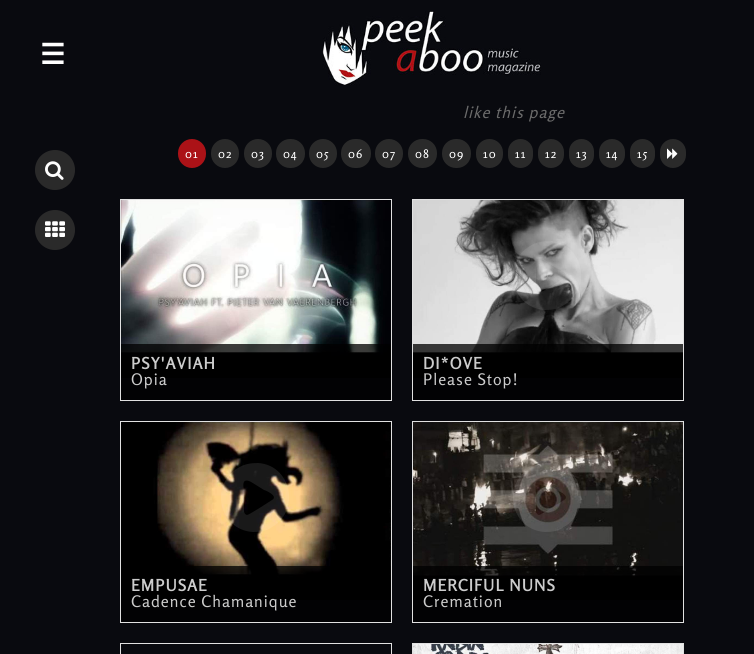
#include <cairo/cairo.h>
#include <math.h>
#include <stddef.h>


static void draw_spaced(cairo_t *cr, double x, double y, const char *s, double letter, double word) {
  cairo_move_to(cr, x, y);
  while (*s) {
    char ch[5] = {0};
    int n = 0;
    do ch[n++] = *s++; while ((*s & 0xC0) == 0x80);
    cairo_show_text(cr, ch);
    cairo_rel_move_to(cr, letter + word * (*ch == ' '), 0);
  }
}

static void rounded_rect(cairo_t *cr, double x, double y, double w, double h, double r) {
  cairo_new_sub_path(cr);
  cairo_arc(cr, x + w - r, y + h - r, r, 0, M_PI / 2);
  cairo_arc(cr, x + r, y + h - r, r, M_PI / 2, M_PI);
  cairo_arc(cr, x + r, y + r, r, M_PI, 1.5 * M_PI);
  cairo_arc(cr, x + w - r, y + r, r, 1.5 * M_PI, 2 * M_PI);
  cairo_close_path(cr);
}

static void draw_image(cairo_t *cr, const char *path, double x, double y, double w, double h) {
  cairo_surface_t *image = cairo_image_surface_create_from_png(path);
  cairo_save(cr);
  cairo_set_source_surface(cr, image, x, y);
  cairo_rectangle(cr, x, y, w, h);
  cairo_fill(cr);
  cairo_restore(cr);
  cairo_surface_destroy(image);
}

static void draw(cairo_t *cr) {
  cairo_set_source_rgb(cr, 9 / 255.0, 10 / 255.0, 15 / 255.0);
  cairo_paint(cr);
  cairo_set_source_rgb(cr, 42 / 255.0, 42 / 255.0, 42 / 255.0);
  cairo_arc(cr, 55, 170, 20, 0, 2 * M_PI);
  cairo_fill(cr);
  draw_image(cr, "images/1.png", 45, 161, 19, 19);
  cairo_arc(cr, 55, 230, 20, 0, 2 * M_PI);
  cairo_fill(cr);
  draw_image(cr, "images/2.png", 45, 221, 20, 16);
  draw_image(cr, "images/3.png", 322, 11, 219, 75);
  cairo_set_source_rgb(cr, 171 / 255.0, 18 / 255.0, 23 / 255.0);
  rounded_rect(cr, 178, 139, 28, 29, 14);
  cairo_fill(cr);
  cairo_set_source_rgb(cr, 42 / 255.0, 42 / 255.0, 42 / 255.0);
  rounded_rect(cr, 211, 139, 28, 29, 14);
  cairo_fill(cr);
  rounded_rect(cr, 244, 139, 28, 29, 14);
  cairo_fill(cr);
  rounded_rect(cr, 276, 139, 29, 29, 14);
  cairo_fill(cr);
  rounded_rect(cr, 309, 139, 28, 29, 14);
  cairo_fill(cr);
  rounded_rect(cr, 341, 139, 30, 29, 14);
  cairo_fill(cr);
  rounded_rect(cr, 375, 139, 28, 29, 14);
  cairo_fill(cr);
  rounded_rect(cr, 408, 139, 29, 29, 14);
  cairo_fill(cr);
  rounded_rect(cr, 442, 139, 29, 29, 14);
  cairo_fill(cr);
  rounded_rect(cr, 476, 139, 27, 29, 13.5);
  cairo_fill(cr);
  rounded_rect(cr, 508, 139, 25, 29, 12.5);
  cairo_fill(cr);
  rounded_rect(cr, 538, 139, 26, 29, 13);
  cairo_fill(cr);
  rounded_rect(cr, 569, 139, 25, 29, 12.5);
  cairo_fill(cr);
  rounded_rect(cr, 599, 139, 26, 29, 13);
  cairo_fill(cr);
  rounded_rect(cr, 630, 139, 25, 29, 12.5);
  cairo_fill(cr);
  rounded_rect(cr, 660, 139, 26, 29, 13);
  cairo_fill(cr);
  draw_image(cr, "images/4.png", 667, 148, 11, 11);
  cairo_rectangle(cr, 120.5, 199.5, 271, 201);
  cairo_set_source_rgb(cr, 225 / 255.0, 225 / 255.0, 225 / 255.0);
  cairo_set_line_width(cr, 1);
  cairo_stroke(cr);
  draw_image(cr, "images/5.png", 121, 200, 270, 178);
  cairo_set_source_rgba(cr, 1, 1, 1, 0.1);
  cairo_new_path(cr);
  cairo_move_to(cr, 238, 246);
  cairo_curve_to(cr, 244, 242, 251, 241, 258, 241);
  cairo_curve_to(cr, 291, 243, 301, 288, 272, 305);
  cairo_curve_to(cr, 267, 309, 260, 310, 253, 310);
  cairo_curve_to(cr, 219, 308, 209, 263, 238, 246);
  cairo_close_path(cr);
  cairo_move_to(cr, 272, 278);
  cairo_curve_to(cr, 279, 274, 265, 268, 264, 268);
  cairo_line_to(cr, 256, 263);
  cairo_curve_to(cr, 254, 262, 248, 257, 245, 259);
  cairo_curve_to(cr, 242, 260, 244, 268, 244, 271);
  cairo_line_to(cr, 244, 285);
  cairo_curve_to(cr, 244, 287, 243, 292, 247, 293);
  cairo_curve_to(cr, 249, 293, 269, 280, 272, 278);
  cairo_close_path(cr);
  cairo_fill(cr);
  cairo_set_source_rgba(cr, 0, 0, 0, 0.76);
  cairo_rectangle(cr, 121, 344, 270, 56);
  cairo_fill(cr);
  cairo_rectangle(cr, 412.5, 199.5, 271, 201);
  cairo_set_source_rgb(cr, 225 / 255.0, 225 / 255.0, 225 / 255.0);
  cairo_stroke(cr);
  draw_image(cr, "images/6.png", 413, 200, 270, 178);
  cairo_set_source_rgba(cr, 1, 1, 1, 0.1);
  cairo_new_path(cr);
  cairo_move_to(cr, 530, 246);
  cairo_curve_to(cr, 536, 242, 543, 241, 550, 241);
  cairo_curve_to(cr, 583, 243, 593, 288, 564, 305);
  cairo_curve_to(cr, 559, 309, 552, 310, 545, 310);
  cairo_curve_to(cr, 511, 308, 501, 263, 530, 246);
  cairo_close_path(cr);
  cairo_move_to(cr, 564, 278);
  cairo_curve_to(cr, 571, 274, 557, 268, 556, 268);
  cairo_line_to(cr, 548, 263);
  cairo_curve_to(cr, 546, 262, 540, 257, 537, 259);
  cairo_curve_to(cr, 534, 260, 536, 268, 536, 271);
  cairo_line_to(cr, 536, 285);
  cairo_curve_to(cr, 536, 287, 535, 292, 539, 293);
  cairo_curve_to(cr, 541, 293, 561, 280, 564, 278);
  cairo_close_path(cr);
  cairo_fill(cr);
  cairo_set_source_rgba(cr, 0, 0, 0, 0.76);
  cairo_rectangle(cr, 413, 344, 270, 56);
  cairo_fill(cr);
  cairo_rectangle(cr, 120.5, 421.5, 271, 201);
  cairo_set_source_rgb(cr, 225 / 255.0, 225 / 255.0, 225 / 255.0);
  cairo_stroke(cr);
  draw_image(cr, "images/7.png", 121, 422, 270, 178);
  cairo_set_source_rgba(cr, 1, 1, 1, 0.1);
  cairo_new_path(cr);
  cairo_move_to(cr, 238, 468);
  cairo_curve_to(cr, 244, 464, 251, 463, 258, 463);
  cairo_curve_to(cr, 291, 465, 301, 510, 272, 527);
  cairo_curve_to(cr, 267, 531, 260, 532, 253, 532);
  cairo_curve_to(cr, 219, 530, 209, 485, 238, 468);
  cairo_close_path(cr);
  cairo_move_to(cr, 272, 500);
  cairo_curve_to(cr, 279, 496, 265, 490, 264, 490);
  cairo_line_to(cr, 256, 485);
  cairo_curve_to(cr, 254, 484, 248, 479, 245, 481);
  cairo_curve_to(cr, 242, 482, 244, 490, 244, 493);
  cairo_line_to(cr, 244, 507);
  cairo_curve_to(cr, 244, 509, 243, 514, 247, 515);
  cairo_curve_to(cr, 249, 515, 269, 502, 272, 500);
  cairo_close_path(cr);
  cairo_fill(cr);
  cairo_set_source_rgba(cr, 0, 0, 0, 0.76);
  cairo_rectangle(cr, 121, 566, 270, 56);
  cairo_fill(cr);
  cairo_rectangle(cr, 412.5, 421.5, 271, 201);
  cairo_set_source_rgb(cr, 225 / 255.0, 225 / 255.0, 225 / 255.0);
  cairo_stroke(cr);
  draw_image(cr, "images/8.png", 413, 422, 270, 178);
  cairo_set_source_rgba(cr, 1, 1, 1, 0.1);
  cairo_new_path(cr);
  cairo_move_to(cr, 530, 468);
  cairo_curve_to(cr, 536, 464, 543, 463, 550, 463);
  cairo_curve_to(cr, 583, 465, 593, 510, 564, 527);
  cairo_curve_to(cr, 559, 531, 552, 532, 545, 532);
  cairo_curve_to(cr, 511, 530, 501, 485, 530, 468);
  cairo_close_path(cr);
  cairo_move_to(cr, 564, 500);
  cairo_curve_to(cr, 571, 496, 557, 490, 556, 490);
  cairo_line_to(cr, 548, 485);
  cairo_curve_to(cr, 546, 484, 540, 479, 537, 481);
  cairo_curve_to(cr, 534, 482, 536, 490, 536, 493);
  cairo_line_to(cr, 536, 507);
  cairo_curve_to(cr, 536, 509, 535, 514, 539, 515);
  cairo_curve_to(cr, 541, 515, 561, 502, 564, 500);
  cairo_close_path(cr);
  cairo_fill(cr);
  cairo_set_source_rgba(cr, 0, 0, 0, 0.76);
  cairo_rectangle(cr, 413, 566, 270, 56);
  cairo_fill(cr);
  cairo_rectangle(cr, 120.5, 643.5, 271, 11);
  cairo_set_source_rgb(cr, 225 / 255.0, 225 / 255.0, 225 / 255.0);
  cairo_stroke(cr);
  cairo_rectangle(cr, 412.5, 643.5, 271, 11);
  cairo_stroke(cr);
  draw_image(cr, "images/9.png", 413, 644, 270, 10);
  cairo_select_font_face(cr, "DejaVu Sans", CAIRO_FONT_SLANT_NORMAL, CAIRO_FONT_WEIGHT_BOLD);
  cairo_set_font_size(cr, 28);
  cairo_set_source_rgb(cr, 1, 1, 1);
  draw_spaced(cr, 40, 64, "☰", 1, 0);
  cairo_select_font_face(cr, "Rosario", CAIRO_FONT_SLANT_ITALIC, CAIRO_FONT_WEIGHT_NORMAL);
  cairo_set_font_size(cr, 16);
  cairo_set_source_rgb(cr, 107 / 255.0, 107 / 255.0, 107 / 255.0);
  draw_spaced(cr, 463, 118, "like this page", 1, 0);
  cairo_select_font_face(cr, "Rosario", CAIRO_FONT_SLANT_NORMAL, CAIRO_FONT_WEIGHT_NORMAL);
  cairo_set_font_size(cr, 12);
  cairo_set_source_rgb(cr, 1, 1, 1);
  draw_spaced(cr, 185, 158, "01", 1, 0);
  draw_spaced(cr, 218, 158, "02", 1, 0);
  draw_spaced(cr, 251, 158, "03", 1, 0);
  draw_spaced(cr, 283, 158, "04", 1, 0);
  draw_spaced(cr, 316, 158, "05", 1, 0);
  draw_spaced(cr, 348, 158, "06", 1, 0);
  draw_spaced(cr, 382, 158, "07", 1, 0);
  draw_spaced(cr, 415, 158, "08", 1, 0);
  draw_spaced(cr, 449, 158, "09", 1, 0);
  draw_spaced(cr, 483, 158, "10", 1, 0);
  draw_spaced(cr, 515, 158, "11", 1, 0);
  draw_spaced(cr, 545, 158, "12", 1, 0);
  draw_spaced(cr, 576, 158, "13", 1, 0);
  draw_spaced(cr, 606, 158, "14", 1, 0);
  draw_spaced(cr, 637, 158, "15", 1, 0);
  cairo_select_font_face(cr, "Rosario", CAIRO_FONT_SLANT_NORMAL, CAIRO_FONT_WEIGHT_BOLD);
  cairo_set_font_size(cr, 16);
  cairo_set_source_rgb(cr, 204 / 255.0, 204 / 255.0, 204 / 255.0);
  draw_spaced(cr, 131, 369, "PSY'AVIAH", 1, 0);
  cairo_select_font_face(cr, "Rosario", CAIRO_FONT_SLANT_NORMAL, CAIRO_FONT_WEIGHT_NORMAL);
  draw_spaced(cr, 131, 385, "Opia", 1, 0);
  cairo_select_font_face(cr, "Rosario", CAIRO_FONT_SLANT_NORMAL, CAIRO_FONT_WEIGHT_BOLD);
  draw_spaced(cr, 423, 369, "DI*OVE", 1, 0);
  cairo_select_font_face(cr, "Rosario", CAIRO_FONT_SLANT_NORMAL, CAIRO_FONT_WEIGHT_NORMAL);
  draw_spaced(cr, 423, 385, "Please Stop!", 1, 0);
  cairo_select_font_face(cr, "Rosario", CAIRO_FONT_SLANT_NORMAL, CAIRO_FONT_WEIGHT_BOLD);
  draw_spaced(cr, 131, 591, "EMPUSAE", 1, 0);
  cairo_select_font_face(cr, "Rosario", CAIRO_FONT_SLANT_NORMAL, CAIRO_FONT_WEIGHT_NORMAL);
  draw_spaced(cr, 131, 607, "Cadence Chamanique", 1, 0);
  cairo_select_font_face(cr, "Rosario", CAIRO_FONT_SLANT_NORMAL, CAIRO_FONT_WEIGHT_BOLD);
  draw_spaced(cr, 423, 591, "MERCIFUL NUNS", 1, 0);
  cairo_select_font_face(cr, "Rosario", CAIRO_FONT_SLANT_NORMAL, CAIRO_FONT_WEIGHT_NORMAL);
  draw_spaced(cr, 423, 607, "Cremation", 1, 0);
}

int main(void) {
  cairo_surface_t *surface = cairo_image_surface_create(CAIRO_FORMAT_RGB24, 754, 654);
  cairo_t *cr = cairo_create(surface);
  cairo_font_options_t *options = cairo_font_options_create();
  cairo_font_options_set_hint_metrics(options, CAIRO_HINT_METRICS_OFF);
  cairo_font_options_set_hint_style(options, CAIRO_HINT_STYLE_NONE);
  cairo_set_font_options(cr, options);
  cairo_set_miter_limit(cr, 4);
  draw(cr);
  cairo_surface_write_to_png(surface, "out.png");
  cairo_font_options_destroy(options);
  cairo_destroy(cr);
  cairo_surface_destroy(surface);
  return 0;
}
